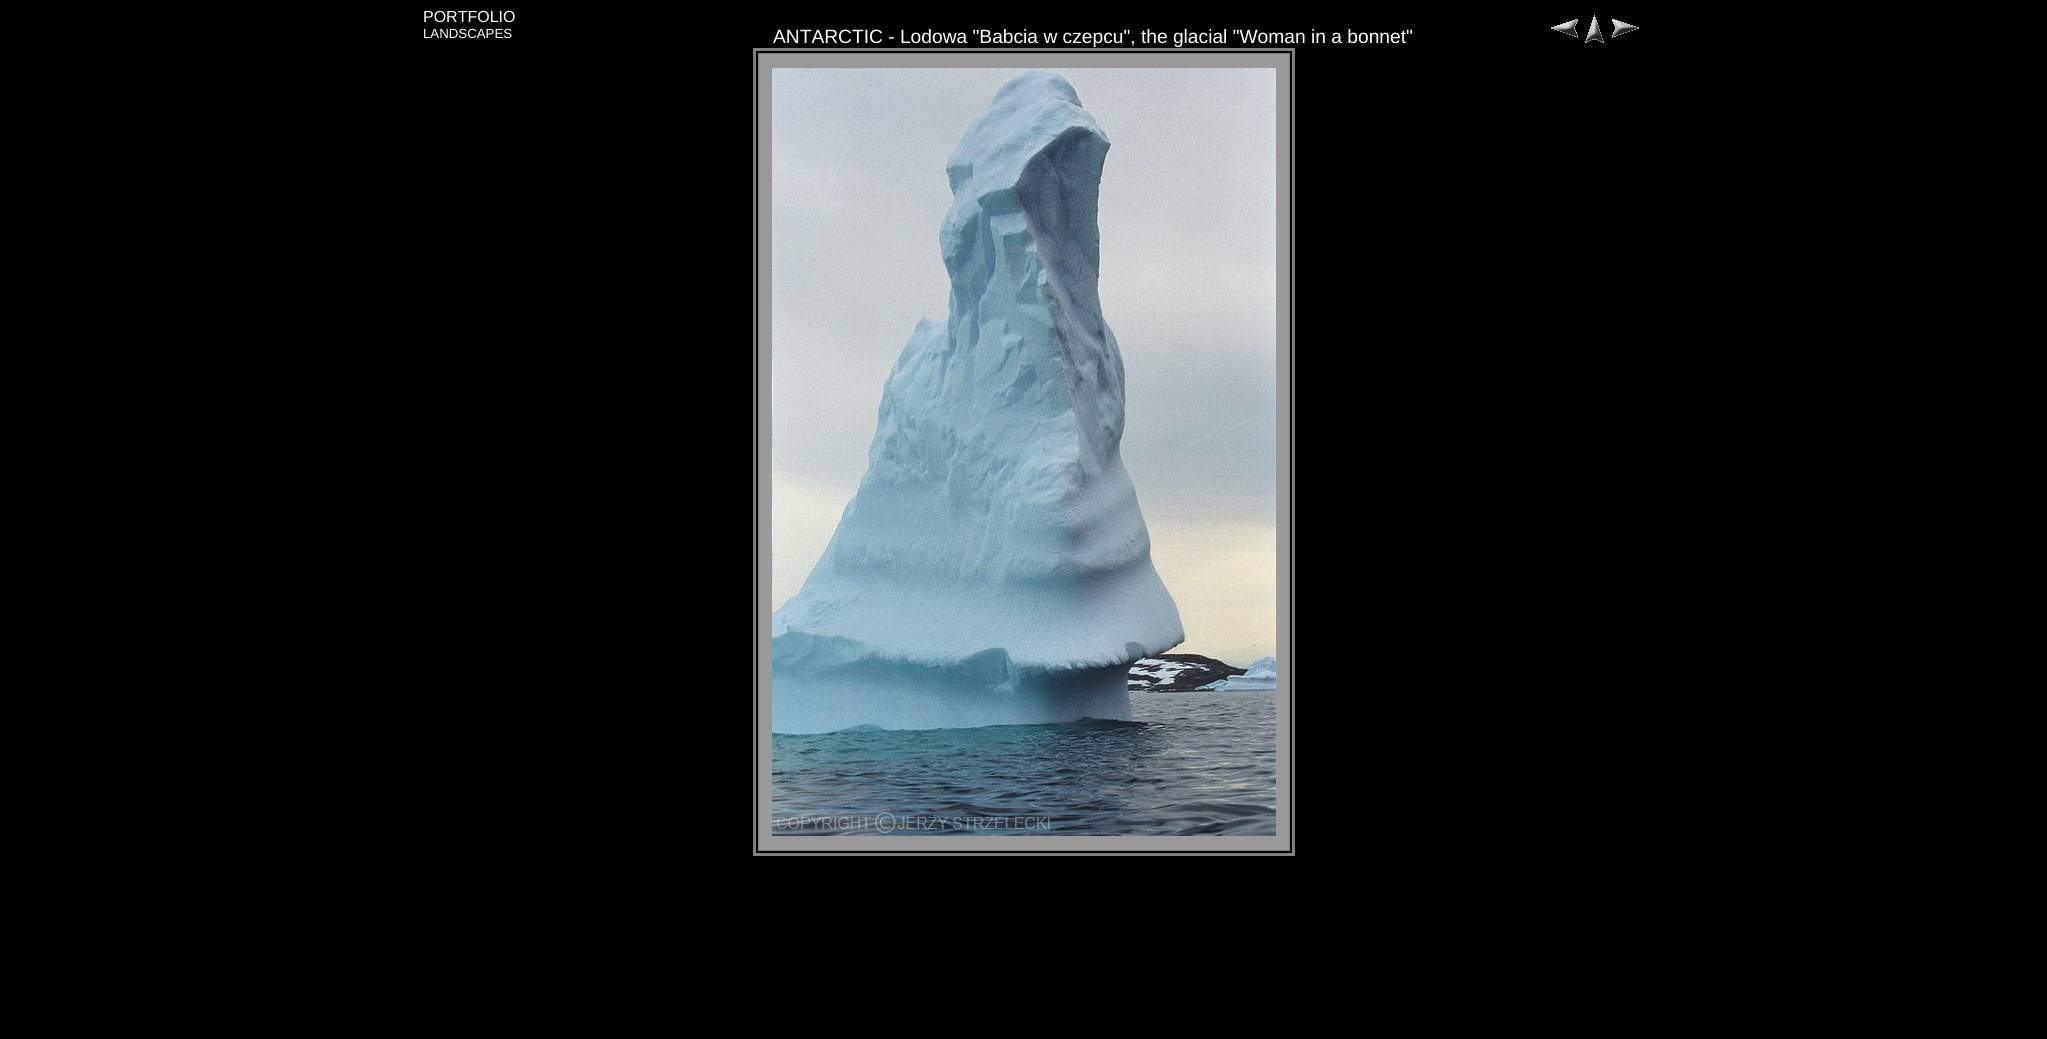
#include <cairo/cairo.h>
#include <math.h>
#include <stddef.h>


static void draw_image(cairo_t *cr, const char *path, double x, double y, double w, double h) {
  cairo_surface_t *image = cairo_image_surface_create_from_png(path);
  cairo_save(cr);
  cairo_set_source_surface(cr, image, x, y);
  cairo_rectangle(cr, x, y, w, h);
  cairo_fill(cr);
  cairo_restore(cr);
  cairo_surface_destroy(image);
}

static void draw(cairo_t *cr) {
  cairo_set_source_rgb(cr, 0, 0, 0);
  cairo_paint(cr);
  draw_image(cr, "images/1.png", 1551, 19, 27, 19);
  draw_image(cr, "images/2.png", 1585, 15, 19, 28);
  draw_image(cr, "images/3.png", 1612, 19, 27, 19);
  cairo_rectangle(cr, 754.5, 49.5, 539, 805);
  cairo_set_source_rgb(cr, 128 / 255.0, 128 / 255.0, 128 / 255.0);
  cairo_set_line_width(cr, 3);
  cairo_stroke(cr);
  cairo_set_source_rgb(cr, 153 / 255.0, 153 / 255.0, 153 / 255.0);
  cairo_rectangle(cr, 758.5, 53.5, 531, 797);
  cairo_fill_preserve(cr);
  cairo_set_source_rgb(cr, 128 / 255.0, 128 / 255.0, 128 / 255.0);
  cairo_set_line_width(cr, 1);
  cairo_stroke(cr);
  draw_image(cr, "images/4.png", 772, 68, 504, 768);
  cairo_select_font_face(cr, "Liberation Sans", CAIRO_FONT_SLANT_NORMAL, CAIRO_FONT_WEIGHT_NORMAL);
  cairo_set_font_size(cr, 16);
  cairo_set_source_rgb(cr, 1, 1, 1);
  cairo_move_to(cr, 423, 22);
  cairo_show_text(cr, "PORTFOLIO");
  cairo_set_font_size(cr, 13.25);
  cairo_move_to(cr, 423, 38);
  cairo_show_text(cr, "LANDSCAPES");
  cairo_set_font_size(cr, 19.2);
  cairo_move_to(cr, 773, 43);
  cairo_show_text(cr, "ANTARCTIC - Lodowa \"Babcia w czepcu\", the glacial \"Woman in a bonnet\"");
}

int main(void) {
  cairo_surface_t *surface = cairo_image_surface_create(CAIRO_FORMAT_RGB24, 2047, 1039);
  cairo_t *cr = cairo_create(surface);
  cairo_font_options_t *options = cairo_font_options_create();
  cairo_font_options_set_hint_metrics(options, CAIRO_HINT_METRICS_OFF);
  cairo_font_options_set_hint_style(options, CAIRO_HINT_STYLE_NONE);
  cairo_set_font_options(cr, options);
  cairo_set_miter_limit(cr, 4);
  draw(cr);
  cairo_surface_write_to_png(surface, "out.png");
  cairo_font_options_destroy(options);
  cairo_destroy(cr);
  cairo_surface_destroy(surface);
  return 0;
}
